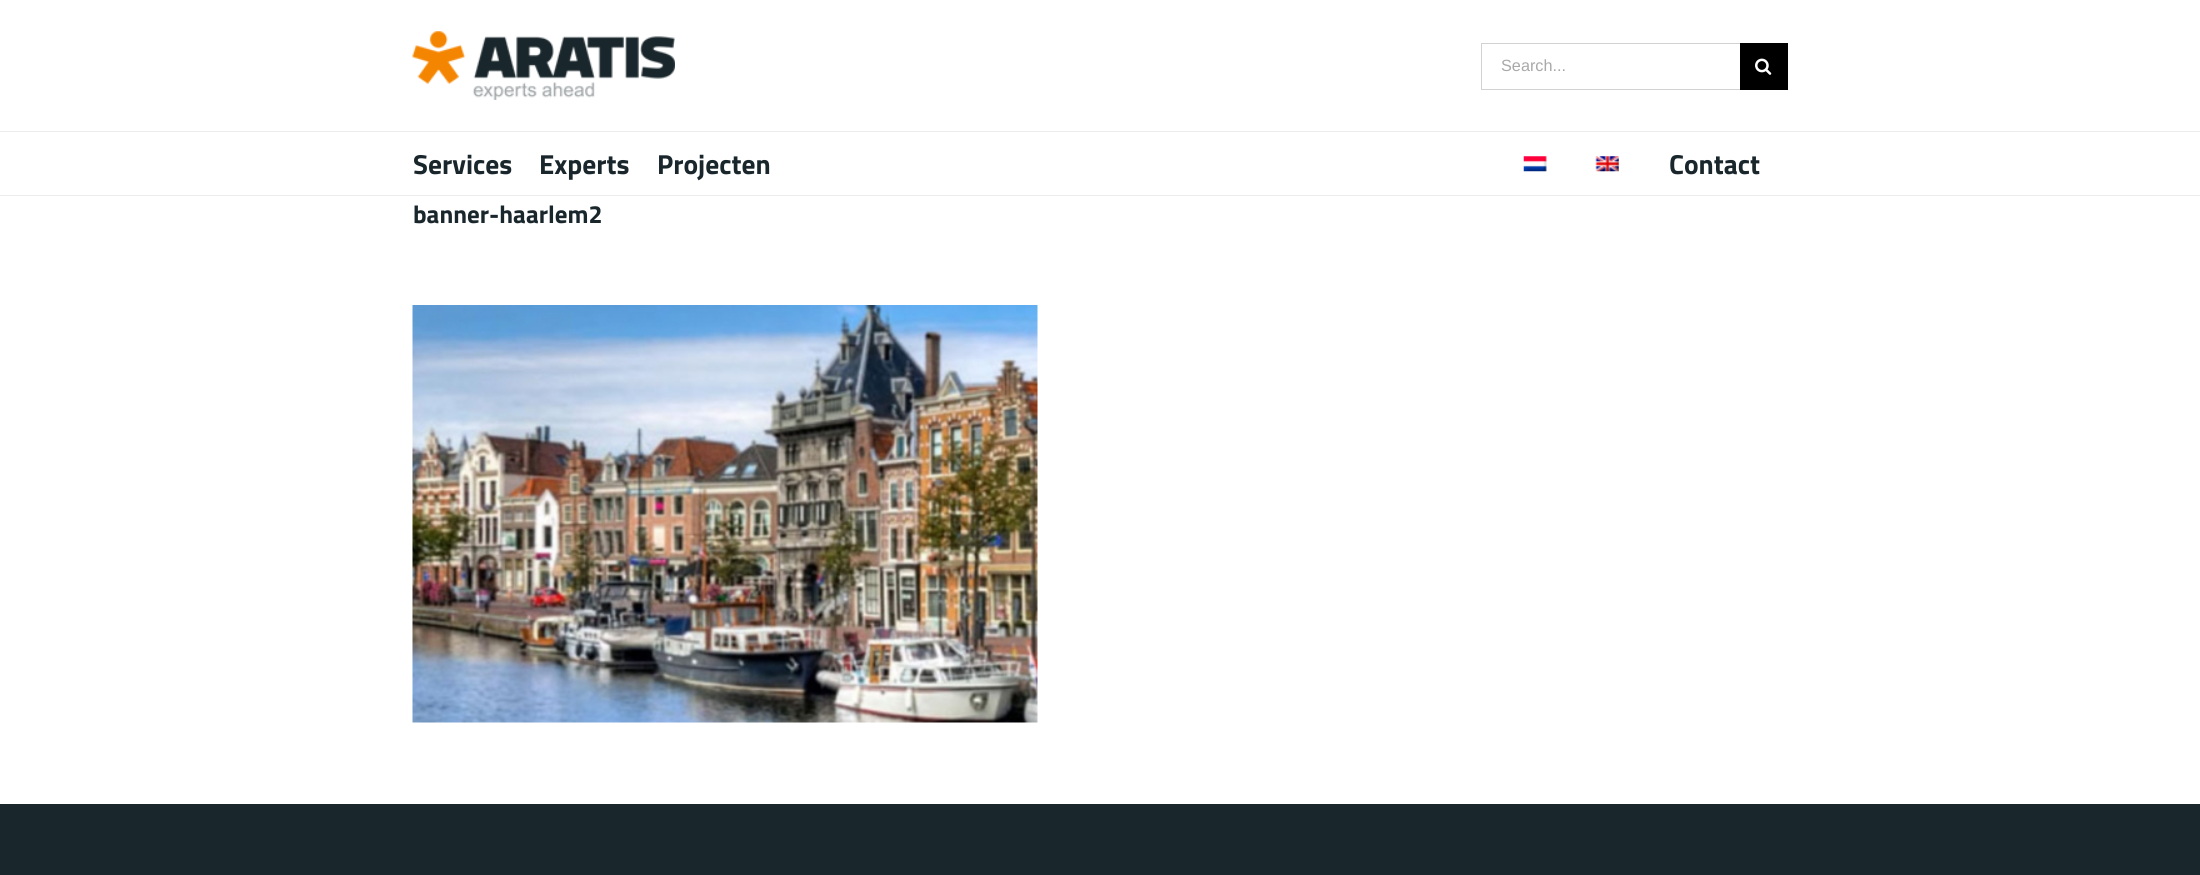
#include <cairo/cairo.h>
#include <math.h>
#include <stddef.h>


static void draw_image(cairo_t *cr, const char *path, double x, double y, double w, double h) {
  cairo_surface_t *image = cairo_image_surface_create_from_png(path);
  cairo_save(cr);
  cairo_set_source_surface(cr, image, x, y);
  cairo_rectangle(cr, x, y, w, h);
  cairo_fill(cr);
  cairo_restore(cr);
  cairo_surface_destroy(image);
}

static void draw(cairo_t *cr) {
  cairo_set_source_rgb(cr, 1, 1, 1);
  cairo_paint(cr);
  cairo_set_source_rgb(cr, 237 / 255.0, 236 / 255.0, 236 / 255.0);
  cairo_rectangle(cr, 0, 131, 2200, 1);
  cairo_fill(cr);
  draw_image(cr, "images/1.png", 412, 31, 263, 69);
  cairo_set_source_rgb(cr, 210 / 255.0, 210 / 255.0, 210 / 255.0);
  cairo_rectangle(cr, 1481, 43, 259, 1);
  cairo_fill(cr);
  cairo_rectangle(cr, 1481, 89, 259, 1);
  cairo_fill(cr);
  cairo_rectangle(cr, 1481, 43, 1, 47);
  cairo_fill(cr);
  cairo_set_source_rgb(cr, 0, 0, 0);
  cairo_rectangle(cr, 1740, 43, 48, 47);
  cairo_fill(cr);
  draw_image(cr, "images/2.png", 1755, 58, 17, 17);
  cairo_set_source_rgb(cr, 237 / 255.0, 236 / 255.0, 236 / 255.0);
  cairo_rectangle(cr, 0, 195, 2200, 1);
  cairo_fill(cr);
  draw_image(cr, "images/3.png", 1523, 156, 24, 16);
  draw_image(cr, "images/4.png", 1595, 156, 24, 16);
  draw_image(cr, "images/5.png", 412, 305, 626, 418);
  cairo_set_source_rgb(cr, 25 / 255.0, 38 / 255.0, 43 / 255.0);
  cairo_rectangle(cr, 0, 804, 2200, 71);
  cairo_fill(cr);
  cairo_select_font_face(cr, "Liberation Sans", CAIRO_FONT_SLANT_NORMAL, CAIRO_FONT_WEIGHT_NORMAL);
  cairo_set_font_size(cr, 16.25);
  cairo_set_source_rgb(cr, 170 / 255.0, 169 / 255.0, 169 / 255.0);
  cairo_move_to(cr, 1501, 71);
  cairo_show_text(cr, "Search...");
  cairo_select_font_face(cr, "Titillium Web", CAIRO_FONT_SLANT_NORMAL, CAIRO_FONT_WEIGHT_BOLD);
  cairo_set_font_size(cr, 27.5);
  cairo_set_source_rgb(cr, 25 / 255.0, 38 / 255.0, 44 / 255.0);
  cairo_move_to(cr, 413, 174);
  cairo_show_text(cr, "Services");
  cairo_move_to(cr, 539, 174);
  cairo_show_text(cr, "Experts");
  cairo_move_to(cr, 657, 174);
  cairo_show_text(cr, "Projecten");
  cairo_move_to(cr, 1669, 174);
  cairo_show_text(cr, "Contact");
  cairo_set_font_size(cr, 25);
  cairo_move_to(cr, 413, 223);
  cairo_show_text(cr, "banner-haarlem2");
}

int main(void) {
  cairo_surface_t *surface = cairo_image_surface_create(CAIRO_FORMAT_RGB24, 2200, 875);
  cairo_t *cr = cairo_create(surface);
  cairo_font_options_t *options = cairo_font_options_create();
  cairo_font_options_set_hint_metrics(options, CAIRO_HINT_METRICS_OFF);
  cairo_font_options_set_hint_style(options, CAIRO_HINT_STYLE_NONE);
  cairo_set_font_options(cr, options);
  cairo_set_miter_limit(cr, 4);
  draw(cr);
  cairo_surface_write_to_png(surface, "out.png");
  cairo_font_options_destroy(options);
  cairo_destroy(cr);
  cairo_surface_destroy(surface);
  return 0;
}
